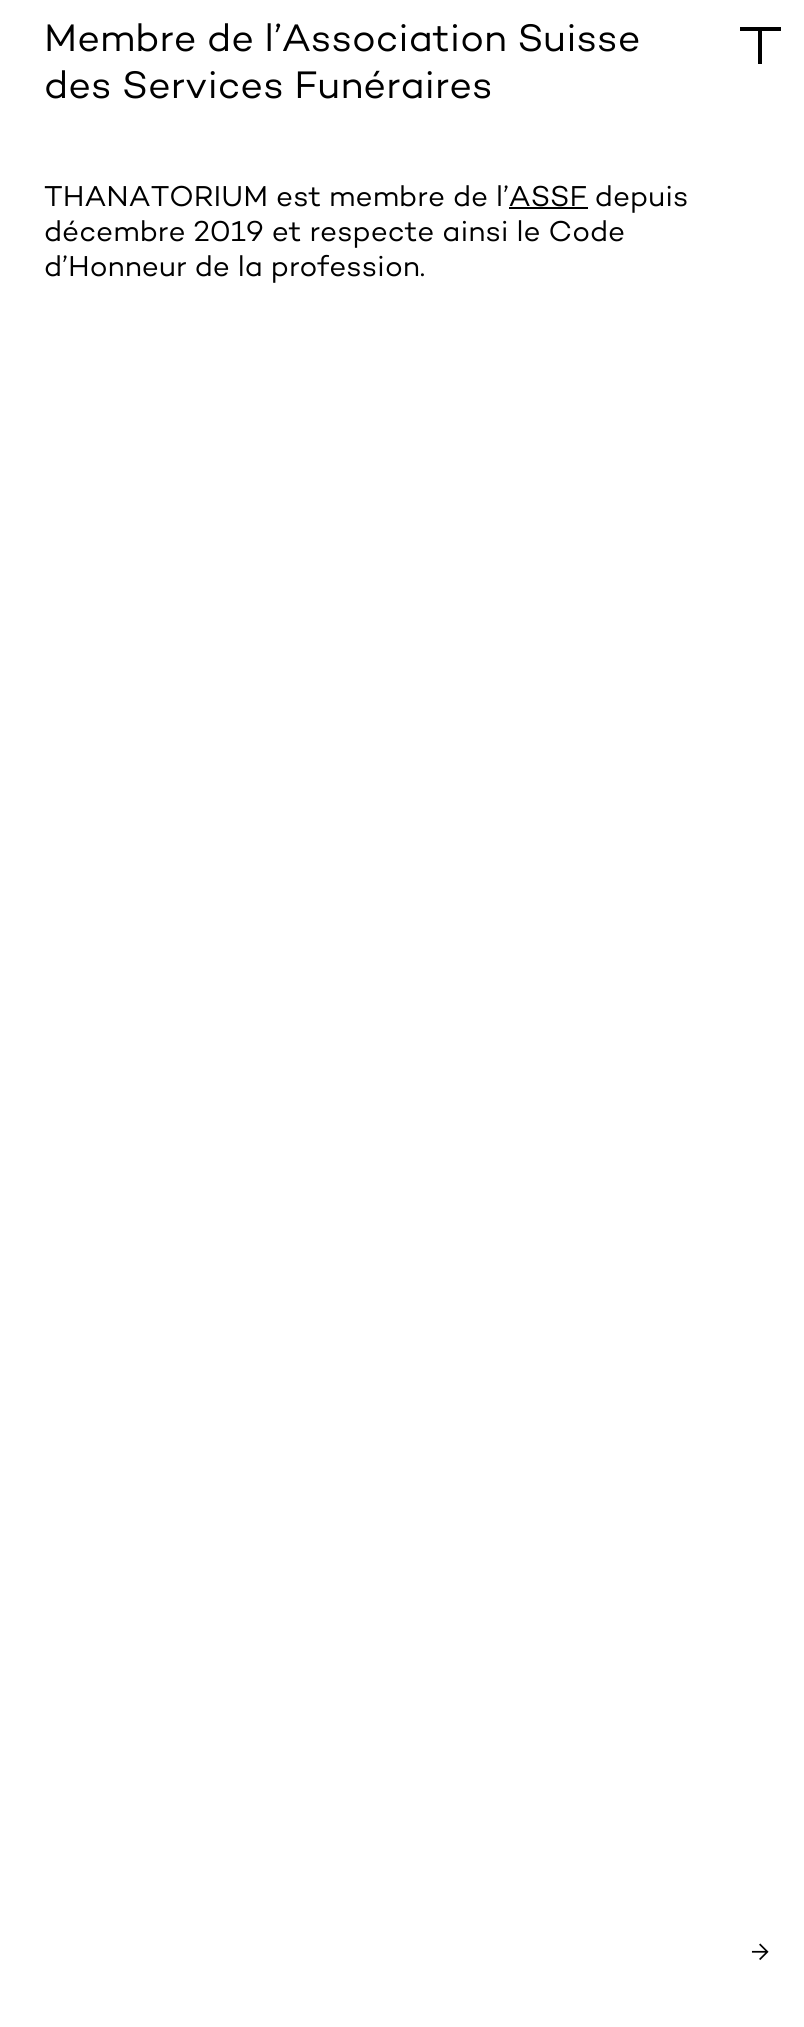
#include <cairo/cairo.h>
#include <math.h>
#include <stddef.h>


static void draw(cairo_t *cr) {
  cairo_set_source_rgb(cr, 1, 1, 1);
  cairo_paint(cr);
  cairo_set_source_rgb(cr, 0, 0, 0);
  cairo_rectangle(cr, 509, 207, 79, 2);
  cairo_fill(cr);
  cairo_save(cr);
  cairo_rectangle(cr, 740, 18, 42, 59);
  cairo_clip(cr);
  cairo_new_path(cr);
  cairo_move_to(cr, 781, 31);
  cairo_line_to(cr, 762, 31);
  cairo_line_to(cr, 762, 64);
  cairo_line_to(cr, 758, 64);
  cairo_line_to(cr, 758, 31);
  cairo_line_to(cr, 739, 31);
  cairo_line_to(cr, 739, 27);
  cairo_line_to(cr, 781, 27);
  cairo_close_path(cr);
  cairo_fill(cr);
  cairo_restore(cr);
  cairo_select_font_face(cr, "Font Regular", CAIRO_FONT_SLANT_NORMAL, CAIRO_FONT_WEIGHT_NORMAL);
  cairo_set_font_size(cr, 39.1);
  cairo_move_to(cr, 44, 51);
  cairo_show_text(cr, "Membre de l’Association Suisse");
  cairo_move_to(cr, 44, 98);
  cairo_show_text(cr, "des Services Funéraires");
  cairo_set_font_size(cr, 29.3);
  cairo_move_to(cr, 44, 206);
  cairo_show_text(cr, "THANATORIUM est membre de l’ASSF depuis");
  cairo_move_to(cr, 44, 241);
  cairo_show_text(cr, "décembre 2019 et respecte ainsi le Code");
  cairo_move_to(cr, 44, 276);
  cairo_show_text(cr, "d’Honneur de la profession.");
  cairo_set_font_size(cr, 24);
  cairo_move_to(cr, 751, 1960);
  cairo_show_text(cr, "→");
}

int main(void) {
  cairo_surface_t *surface = cairo_image_surface_create(CAIRO_FORMAT_RGB24, 804, 2027);
  cairo_t *cr = cairo_create(surface);
  cairo_font_options_t *options = cairo_font_options_create();
  cairo_font_options_set_hint_metrics(options, CAIRO_HINT_METRICS_OFF);
  cairo_font_options_set_hint_style(options, CAIRO_HINT_STYLE_NONE);
  cairo_set_font_options(cr, options);
  cairo_set_miter_limit(cr, 4);
  draw(cr);
  cairo_surface_write_to_png(surface, "out.png");
  cairo_font_options_destroy(options);
  cairo_destroy(cr);
  cairo_surface_destroy(surface);
  return 0;
}
